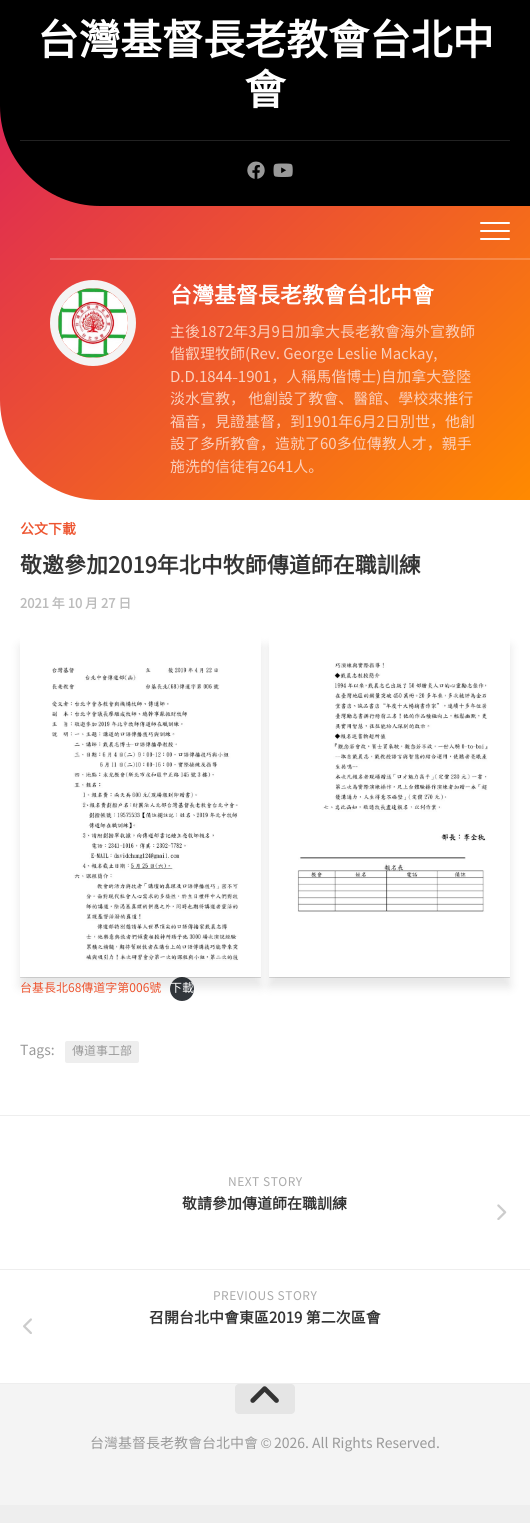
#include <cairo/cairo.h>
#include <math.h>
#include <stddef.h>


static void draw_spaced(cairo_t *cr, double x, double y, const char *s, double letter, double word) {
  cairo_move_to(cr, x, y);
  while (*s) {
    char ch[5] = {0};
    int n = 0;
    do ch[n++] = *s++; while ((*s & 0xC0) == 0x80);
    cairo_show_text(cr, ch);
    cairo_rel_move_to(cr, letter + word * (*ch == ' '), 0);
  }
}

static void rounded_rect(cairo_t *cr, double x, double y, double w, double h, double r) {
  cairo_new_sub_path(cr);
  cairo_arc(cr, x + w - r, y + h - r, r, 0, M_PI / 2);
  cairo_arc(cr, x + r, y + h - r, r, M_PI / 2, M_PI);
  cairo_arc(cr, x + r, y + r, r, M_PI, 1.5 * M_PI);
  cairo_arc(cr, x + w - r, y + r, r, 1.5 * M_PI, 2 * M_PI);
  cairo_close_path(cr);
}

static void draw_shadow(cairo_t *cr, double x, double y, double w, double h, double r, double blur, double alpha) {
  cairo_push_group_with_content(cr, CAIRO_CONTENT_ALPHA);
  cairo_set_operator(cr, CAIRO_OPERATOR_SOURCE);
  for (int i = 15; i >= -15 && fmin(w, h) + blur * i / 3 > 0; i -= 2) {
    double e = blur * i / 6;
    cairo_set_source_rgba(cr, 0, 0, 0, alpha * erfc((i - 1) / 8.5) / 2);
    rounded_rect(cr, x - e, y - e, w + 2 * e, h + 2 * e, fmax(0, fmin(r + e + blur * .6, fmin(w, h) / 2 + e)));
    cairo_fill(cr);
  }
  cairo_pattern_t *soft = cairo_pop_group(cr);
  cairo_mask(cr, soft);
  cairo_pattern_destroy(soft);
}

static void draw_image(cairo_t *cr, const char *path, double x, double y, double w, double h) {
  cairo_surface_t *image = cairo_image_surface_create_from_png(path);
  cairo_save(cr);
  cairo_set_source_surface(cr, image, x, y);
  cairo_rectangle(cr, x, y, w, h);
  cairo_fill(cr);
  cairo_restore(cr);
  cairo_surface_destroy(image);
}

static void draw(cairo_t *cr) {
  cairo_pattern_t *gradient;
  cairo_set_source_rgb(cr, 238 / 255.0, 238 / 255.0, 238 / 255.0);
  cairo_paint(cr);
  cairo_set_source_rgb(cr, 1, 1, 1);
  cairo_rectangle(cr, 0, 400, 99, 100);
  cairo_fill(cr);
  gradient = cairo_pattern_create_linear(515, 515, 15, -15);
  cairo_pattern_add_color_stop_rgba(gradient, 0, 1, 138 / 255.0, 0, 1);
  cairo_pattern_add_color_stop_rgba(gradient, 1, 218 / 255.0, 27 / 255.0, 96 / 255.0, 1);
  cairo_set_source(cr, gradient);
  cairo_pattern_destroy(gradient);
  cairo_new_path(cr);
  cairo_move_to(cr, 0, 0);
  cairo_line_to(cr, 530, 0);
  cairo_line_to(cr, 530, 500);
  cairo_line_to(cr, 100, 500);
  cairo_curve_to(cr, 45, 500, 0, 455, 0, 400);
  cairo_close_path(cr);
  cairo_fill(cr);
  gradient = cairo_pattern_create_linear(515, 515, 15, -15);
  cairo_pattern_add_color_stop_rgba(gradient, 0, 1, 161 / 255.0, 51 / 255.0, 1);
  cairo_pattern_add_color_stop_rgba(gradient, 1, 225 / 255.0, 73 / 255.0, 128 / 255.0, 1);
  cairo_set_source(cr, gradient);
  cairo_pattern_destroy(gradient);
  cairo_rectangle(cr, 50, 258, 480, 2);
  cairo_fill(cr);
  cairo_set_source_rgb(cr, 0, 0, 0);
  cairo_new_path(cr);
  cairo_move_to(cr, 0, 0);
  cairo_line_to(cr, 530, 0);
  cairo_line_to(cr, 530, 206);
  cairo_line_to(cr, 100, 206);
  cairo_curve_to(cr, 45, 206, 0, 161, 0, 106);
  cairo_close_path(cr);
  cairo_fill(cr);
  cairo_set_source_rgb(cr, 34 / 255.0, 34 / 255.0, 34 / 255.0);
  cairo_rectangle(cr, 20, 140, 490, 1);
  cairo_fill(cr);
  draw_image(cr, "images/1.png", 247, 161, 18, 18);
  draw_image(cr, "images/2.png", 273, 163, 20, 14);
  cairo_set_source_rgb(cr, 1, 1, 1);
  rounded_rect(cr, 480, 222, 30, 2, 1);
  cairo_fill(cr);
  rounded_rect(cr, 480, 230, 30, 2, 1);
  cairo_fill(cr);
  rounded_rect(cr, 480, 238, 30, 2, 1);
  cairo_fill(cr);
  cairo_arc(cr, 93, 323, 39, 0, 2 * M_PI);
  cairo_set_source_rgb(cr, 244 / 255.0, 244 / 255.0, 244 / 255.0);
  cairo_set_line_width(cr, 8);
  cairo_stroke(cr);
  draw_image(cr, "images/3.png", 58, 288, 70, 70);
  cairo_set_source_rgb(cr, 1, 1, 1);
  cairo_rectangle(cr, 0, 500, 530, 883);
  cairo_fill(cr);
  cairo_set_source_rgb(cr, 50 / 255.0, 55 / 255.0, 60 / 255.0);
  cairo_arc(cr, 182, 989, 12, 0, 2 * M_PI);
  cairo_fill(cr);
  cairo_save(cr);
  cairo_rectangle(cr, 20, 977, 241, 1);
  cairo_clip(cr);
  cairo_set_source_rgb(cr, 0, 0, 0);
  draw_shadow(cr, 20, 637, 241, 341, 0, 0.5, 0.15);
  cairo_restore(cr);
  cairo_save(cr);
  cairo_set_fill_rule(cr, CAIRO_FILL_RULE_EVEN_ODD);
  cairo_new_path(cr);
  cairo_move_to(cr, 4, 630);
  cairo_line_to(cr, 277, 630);
  cairo_line_to(cr, 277, 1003);
  cairo_line_to(cr, 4, 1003);
  cairo_close_path(cr);
  cairo_move_to(cr, 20, 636);
  cairo_line_to(cr, 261, 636);
  cairo_line_to(cr, 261, 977);
  cairo_line_to(cr, 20, 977);
  cairo_close_path(cr);
  cairo_clip(cr);
  cairo_set_source_rgb(cr, 0, 0, 0);
  draw_shadow(cr, 20, 646, 241, 341, 0, 5, 0.1);
  cairo_restore(cr);
  draw_image(cr, "images/4.png", 51, 667, 188, 294);
  cairo_save(cr);
  cairo_rectangle(cr, 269, 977, 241, 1);
  cairo_clip(cr);
  cairo_set_source_rgb(cr, 0, 0, 0);
  draw_shadow(cr, 269, 637, 241, 341, 0, 0.5, 0.15);
  cairo_restore(cr);
  cairo_save(cr);
  cairo_set_fill_rule(cr, CAIRO_FILL_RULE_EVEN_ODD);
  cairo_new_path(cr);
  cairo_move_to(cr, 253, 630);
  cairo_line_to(cr, 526, 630);
  cairo_line_to(cr, 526, 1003);
  cairo_line_to(cr, 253, 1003);
  cairo_close_path(cr);
  cairo_move_to(cr, 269, 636);
  cairo_line_to(cr, 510, 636);
  cairo_line_to(cr, 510, 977);
  cairo_line_to(cr, 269, 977);
  cairo_close_path(cr);
  cairo_clip(cr);
  cairo_set_source_rgb(cr, 0, 0, 0);
  draw_shadow(cr, 269, 646, 241, 341, 0, 5, 0.1);
  cairo_restore(cr);
  draw_image(cr, "images/5.png", 297, 662, 191, 250);
  cairo_set_source_rgb(cr, 238 / 255.0, 238 / 255.0, 238 / 255.0);
  rounded_rect(cr, 65, 1041, 74, 22, 2);
  cairo_fill(cr);
  cairo_rectangle(cr, 0, 1115, 530, 1);
  cairo_fill(cr);
  cairo_rectangle(cr, 0, 1269, 530, 1);
  cairo_fill(cr);
  draw_image(cr, "images/6.png", 497, 1204, 10, 16);
  draw_image(cr, "images/7.png", 23, 1318, 9, 16);
  cairo_set_source_rgb(cr, 244 / 255.0, 244 / 255.0, 244 / 255.0);
  cairo_rectangle(cr, 0, 1384, 530, 121);
  cairo_fill(cr);
  cairo_set_source_rgb(cr, 229 / 255.0, 229 / 255.0, 229 / 255.0);
  rounded_rect(cr, 235, 1384, 60, 30, 4);
  cairo_fill(cr);
  draw_image(cr, "images/8.png", 250, 1386, 29, 17);
  cairo_select_font_face(cr, "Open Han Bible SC", CAIRO_FONT_SLANT_NORMAL, CAIRO_FONT_WEIGHT_BOLD);
  cairo_set_font_size(cr, 42);
  cairo_set_source_rgb(cr, 1, 1, 1);
  draw_spaced(cr, 37, 55, "台灣基督長老教會台北中", -0.5, 0);
  draw_spaced(cr, 244, 105, "會", -0.5, 0);
  cairo_set_font_size(cr, 22);
  cairo_move_to(cr, 170, 303);
  cairo_show_text(cr, "台灣基督長老教會台北中會");
  cairo_select_font_face(cr, "Open Han Bible SC Light", CAIRO_FONT_SLANT_NORMAL, CAIRO_FONT_WEIGHT_NORMAL);
  cairo_set_font_size(cr, 15);
  cairo_set_source_rgb(cr, 251 / 255.0, 208 / 255.0, 189 / 255.0);
  cairo_move_to(cr, 170, 337);
  cairo_show_text(cr, "主後1872年3月9日加拿大長老教會海外宣教師");
  cairo_move_to(cr, 170, 359);
  cairo_show_text(cr, "偕叡理牧師(Rev. George Leslie Mackay,");
  cairo_move_to(cr, 170, 382);
  cairo_show_text(cr, "D.D.1844-1901，人稱馬偕博士)自加拿大登陸");
  cairo_move_to(cr, 170, 404);
  cairo_show_text(cr, "淡水宣教， 他創設了教會、醫館、學校來推行");
  cairo_move_to(cr, 170, 427);
  cairo_show_text(cr, "福音，見證基督，到1901年6月2日別世，他創");
  cairo_move_to(cr, 170, 449);
  cairo_show_text(cr, "設了多所教會，造就了60多位傳教人才，親手");
  cairo_move_to(cr, 170, 472);
  cairo_show_text(cr, "施洗的信徒有2641人。");
  cairo_select_font_face(cr, "Open Han Bible SC", CAIRO_FONT_SLANT_NORMAL, CAIRO_FONT_WEIGHT_BOLD);
  cairo_set_font_size(cr, 14);
  cairo_set_source_rgb(cr, 237 / 255.0, 84 / 255.0, 47 / 255.0);
  cairo_move_to(cr, 20, 534);
  cairo_show_text(cr, "公文下載");
  cairo_set_font_size(cr, 22);
  cairo_set_source_rgb(cr, 51 / 255.0, 51 / 255.0, 51 / 255.0);
  cairo_move_to(cr, 20, 573);
  cairo_show_text(cr, "敬邀參加2019年北中牧師傳道師在職訓練");
  cairo_set_font_size(cr, 13);
  cairo_set_source_rgb(cr, 187 / 255.0, 187 / 255.0, 187 / 255.0);
  cairo_move_to(cr, 20, 608);
  cairo_show_text(cr, "2021 年 10 月 27 日");
  cairo_select_font_face(cr, "Open Han Bible SC Light", CAIRO_FONT_SLANT_NORMAL, CAIRO_FONT_WEIGHT_NORMAL);
  cairo_set_font_size(cr, 12);
  cairo_set_source_rgb(cr, 237 / 255.0, 84 / 255.0, 47 / 255.0);
  cairo_move_to(cr, 20, 992);
  cairo_show_text(cr, "台基長北68傳道字第006號");
  cairo_set_source_rgb(cr, 1, 1, 1);
  cairo_move_to(cr, 170, 992);
  cairo_show_text(cr, "下載");
  cairo_set_font_size(cr, 14);
  cairo_set_source_rgb(cr, 153 / 255.0, 153 / 255.0, 153 / 255.0);
  cairo_move_to(cr, 20, 1055);
  cairo_show_text(cr, "Tags:");
  cairo_set_font_size(cr, 12);
  cairo_move_to(cr, 72, 1055);
  cairo_show_text(cr, "傳道事工部");
  cairo_set_source_rgb(cr, 170 / 255.0, 170 / 255.0, 170 / 255.0);
  draw_spaced(cr, 228, 1186, "NEXT STORY", 0.5, 0);
  cairo_select_font_face(cr, "Open Han Bible SC", CAIRO_FONT_SLANT_NORMAL, CAIRO_FONT_WEIGHT_BOLD);
  cairo_set_font_size(cr, 15);
  cairo_set_source_rgb(cr, 51 / 255.0, 51 / 255.0, 51 / 255.0);
  cairo_move_to(cr, 182, 1209);
  cairo_show_text(cr, "敬請參加傳道師在職訓練");
  cairo_select_font_face(cr, "Open Han Bible SC Light", CAIRO_FONT_SLANT_NORMAL, CAIRO_FONT_WEIGHT_NORMAL);
  cairo_set_font_size(cr, 12);
  cairo_set_source_rgb(cr, 170 / 255.0, 170 / 255.0, 170 / 255.0);
  draw_spaced(cr, 213, 1300, "PREVIOUS STORY", 0.5, 0);
  cairo_select_font_face(cr, "Open Han Bible SC", CAIRO_FONT_SLANT_NORMAL, CAIRO_FONT_WEIGHT_BOLD);
  cairo_set_font_size(cr, 15);
  cairo_set_source_rgb(cr, 51 / 255.0, 51 / 255.0, 51 / 255.0);
  cairo_move_to(cr, 149, 1323);
  cairo_show_text(cr, "召開台北中會東區2019 第二次區會");
  cairo_select_font_face(cr, "Open Han Bible SC Light", CAIRO_FONT_SLANT_NORMAL, CAIRO_FONT_WEIGHT_NORMAL);
  cairo_set_font_size(cr, 14);
  cairo_set_source_rgb(cr, 153 / 255.0, 153 / 255.0, 153 / 255.0);
  cairo_move_to(cr, 90, 1448);
  cairo_show_text(cr, "台灣基督長老教會台北中會");
  cairo_select_font_face(cr, "Liberation Sans", CAIRO_FONT_SLANT_NORMAL, CAIRO_FONT_WEIGHT_NORMAL);
  cairo_move_to(cr, 261, 1448);
  cairo_show_text(cr, "©");
  cairo_select_font_face(cr, "Open Han Bible SC Light", CAIRO_FONT_SLANT_NORMAL, CAIRO_FONT_WEIGHT_NORMAL);
  cairo_move_to(cr, 274, 1448);
  cairo_show_text(cr, "2026. All Rights Reserved.");
}

int main(void) {
  cairo_surface_t *surface = cairo_image_surface_create(CAIRO_FORMAT_RGB24, 530, 1523);
  cairo_t *cr = cairo_create(surface);
  cairo_font_options_t *options = cairo_font_options_create();
  cairo_font_options_set_hint_metrics(options, CAIRO_HINT_METRICS_OFF);
  cairo_font_options_set_hint_style(options, CAIRO_HINT_STYLE_NONE);
  cairo_set_font_options(cr, options);
  cairo_set_miter_limit(cr, 4);
  draw(cr);
  cairo_surface_write_to_png(surface, "out.png");
  cairo_font_options_destroy(options);
  cairo_destroy(cr);
  cairo_surface_destroy(surface);
  return 0;
}
